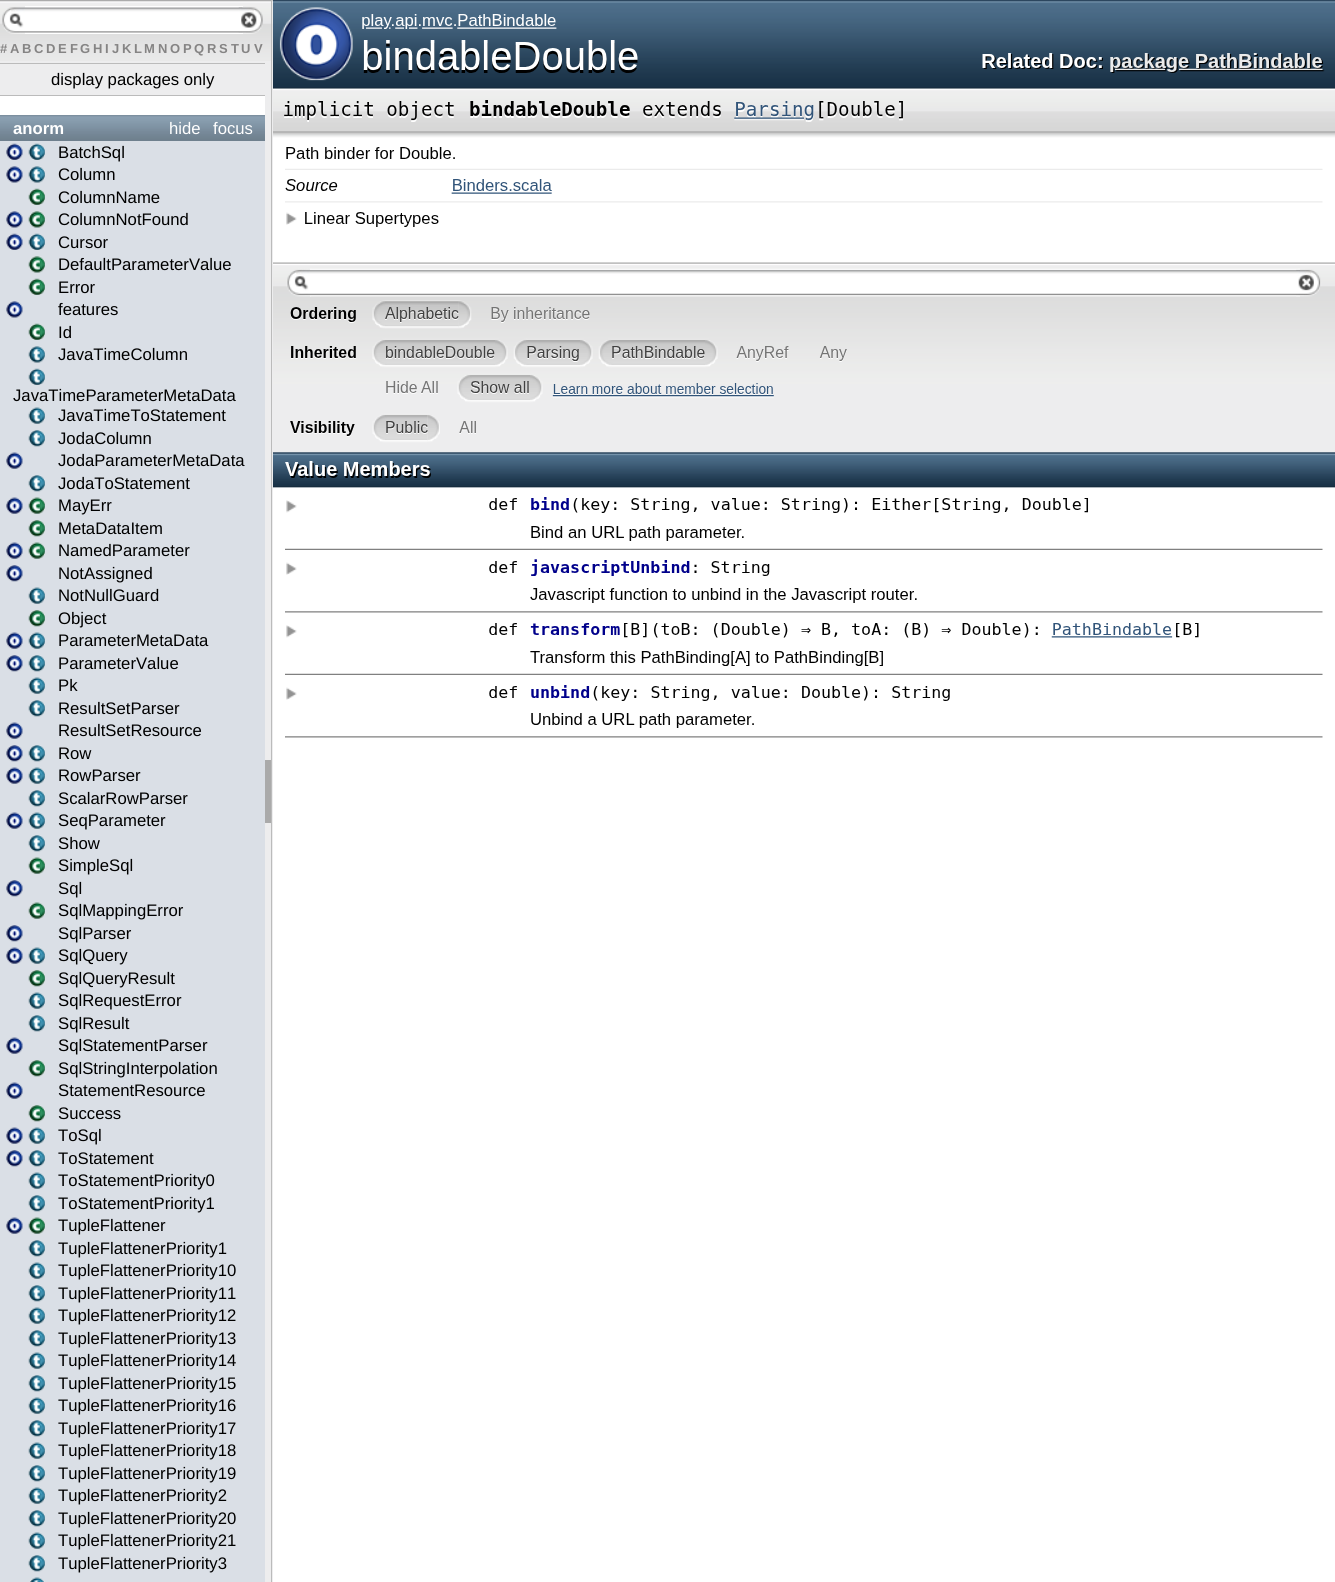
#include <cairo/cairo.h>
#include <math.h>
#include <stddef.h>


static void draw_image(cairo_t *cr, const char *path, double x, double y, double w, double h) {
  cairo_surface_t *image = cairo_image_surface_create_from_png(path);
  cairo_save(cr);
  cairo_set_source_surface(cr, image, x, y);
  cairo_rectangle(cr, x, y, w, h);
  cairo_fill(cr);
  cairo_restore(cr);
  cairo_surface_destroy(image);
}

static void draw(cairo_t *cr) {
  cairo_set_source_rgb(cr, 1, 1, 1);
  cairo_paint(cr);
  cairo_set_source_rgb(cr, 237 / 255.0, 237 / 255.0, 238 / 255.0);
  cairo_rectangle(cr, 0, 61, 265, 34);
  cairo_fill(cr);
  draw_image(cr, "images/1.png", 0, 0, 265, 61);
  cairo_set_source_rgb(cr, 187 / 255.0, 187 / 255.0, 187 / 255.0);
  cairo_rectangle(cr, 0, 95, 265, 1);
  cairo_fill(cr);
  draw_image(cr, "images/2.png", 2, 7, 23, 27);
  cairo_set_source_rgb(cr, 1, 1, 1);
  cairo_rectangle(cr, 25, 6, 218, 28);
  cairo_fill(cr);
  draw_image(cr, "images/3.png", 25, 7, 218, 26);
  draw_image(cr, "images/4.png", 238, 7, 25, 27);
  cairo_set_source_rgb(cr, 187 / 255.0, 187 / 255.0, 187 / 255.0);
  cairo_rectangle(cr, 0, 63, 265, 1);
  cairo_fill(cr);
  draw_image(cr, "images/5.png", 0, 115, 265, 26);
  cairo_set_source_rgb(cr, 218 / 255.0, 223 / 255.0, 230 / 255.0);
  cairo_rectangle(cr, 0, 141, 265, 1441);
  cairo_fill(cr);
  draw_image(cr, "images/6.png", 6, 143, 17, 17);
  draw_image(cr, "images/7.png", 28, 143, 17, 17);
  draw_image(cr, "images/8.png", 6, 166, 17, 17);
  draw_image(cr, "images/9.png", 28, 166, 17, 17);
  draw_image(cr, "images/10.png", 28, 188, 17, 17);
  draw_image(cr, "images/8.png", 6, 211, 17, 17);
  draw_image(cr, "images/11.png", 28, 211, 17, 17);
  draw_image(cr, "images/6.png", 6, 233, 17, 17);
  draw_image(cr, "images/7.png", 28, 233, 17, 17);
  draw_image(cr, "images/12.png", 28, 256, 17, 17);
  draw_image(cr, "images/10.png", 28, 278, 17, 17);
  draw_image(cr, "images/8.png", 6, 301, 17, 17);
  draw_image(cr, "images/10.png", 28, 323, 17, 17);
  draw_image(cr, "images/9.png", 28, 346, 17, 17);
  draw_image(cr, "images/7.png", 28, 368, 17, 17);
  draw_image(cr, "images/13.png", 28, 407, 17, 17);
  draw_image(cr, "images/14.png", 28, 430, 17, 17);
  draw_image(cr, "images/15.png", 6, 452, 17, 17);
  draw_image(cr, "images/14.png", 28, 475, 17, 17);
  draw_image(cr, "images/15.png", 6, 497, 17, 17);
  draw_image(cr, "images/16.png", 28, 497, 17, 17);
  draw_image(cr, "images/17.png", 28, 520, 17, 17);
  draw_image(cr, "images/15.png", 6, 542, 17, 17);
  draw_image(cr, "images/16.png", 28, 542, 17, 17);
  draw_image(cr, "images/18.png", 6, 565, 17, 17);
  draw_image(cr, "images/19.png", 28, 587, 17, 17);
  draw_image(cr, "images/17.png", 28, 610, 17, 17);
  draw_image(cr, "images/15.png", 6, 632, 17, 17);
  draw_image(cr, "images/13.png", 28, 632, 17, 17);
  draw_image(cr, "images/18.png", 6, 655, 17, 17);
  draw_image(cr, "images/14.png", 28, 655, 17, 17);
  draw_image(cr, "images/13.png", 28, 677, 17, 17);
  draw_image(cr, "images/14.png", 28, 700, 17, 17);
  draw_image(cr, "images/15.png", 6, 722, 17, 17);
  draw_image(cr, "images/18.png", 6, 745, 17, 17);
  draw_image(cr, "images/14.png", 28, 745, 17, 17);
  draw_image(cr, "images/15.png", 6, 767, 17, 17);
  draw_image(cr, "images/13.png", 28, 767, 17, 17);
  draw_image(cr, "images/14.png", 28, 790, 17, 17);
  draw_image(cr, "images/15.png", 6, 812, 17, 17);
  draw_image(cr, "images/13.png", 28, 812, 17, 17);
  draw_image(cr, "images/14.png", 28, 835, 17, 17);
  draw_image(cr, "images/16.png", 28, 857, 17, 17);
  draw_image(cr, "images/18.png", 6, 880, 17, 17);
  draw_image(cr, "images/16.png", 28, 902, 17, 17);
  draw_image(cr, "images/18.png", 6, 925, 17, 17);
  draw_image(cr, "images/15.png", 6, 947, 17, 17);
  draw_image(cr, "images/13.png", 28, 947, 17, 17);
  draw_image(cr, "images/17.png", 28, 970, 17, 17);
  draw_image(cr, "images/13.png", 28, 992, 17, 17);
  draw_image(cr, "images/14.png", 28, 1015, 17, 17);
  draw_image(cr, "images/15.png", 6, 1037, 17, 17);
  draw_image(cr, "images/17.png", 28, 1060, 17, 17);
  draw_image(cr, "images/15.png", 6, 1082, 17, 17);
  draw_image(cr, "images/17.png", 28, 1105, 17, 17);
  draw_image(cr, "images/15.png", 6, 1127, 17, 17);
  draw_image(cr, "images/13.png", 28, 1127, 17, 17);
  draw_image(cr, "images/18.png", 6, 1150, 17, 17);
  draw_image(cr, "images/14.png", 28, 1150, 17, 17);
  draw_image(cr, "images/19.png", 28, 1172, 17, 17);
  draw_image(cr, "images/14.png", 28, 1195, 17, 17);
  draw_image(cr, "images/15.png", 6, 1217, 17, 17);
  draw_image(cr, "images/16.png", 28, 1217, 17, 17);
  draw_image(cr, "images/14.png", 28, 1240, 17, 17);
  draw_image(cr, "images/13.png", 28, 1262, 17, 17);
  draw_image(cr, "images/14.png", 28, 1285, 17, 17);
  draw_image(cr, "images/13.png", 28, 1307, 17, 17);
  draw_image(cr, "images/14.png", 28, 1330, 17, 17);
  draw_image(cr, "images/13.png", 28, 1352, 17, 17);
  draw_image(cr, "images/14.png", 28, 1375, 17, 17);
  draw_image(cr, "images/13.png", 28, 1397, 17, 17);
  draw_image(cr, "images/14.png", 28, 1420, 17, 17);
  draw_image(cr, "images/13.png", 28, 1442, 17, 17);
  draw_image(cr, "images/14.png", 28, 1465, 17, 17);
  draw_image(cr, "images/13.png", 28, 1487, 17, 17);
  draw_image(cr, "images/14.png", 28, 1510, 17, 17);
  draw_image(cr, "images/13.png", 28, 1532, 17, 17);
  draw_image(cr, "images/20.png", 28, 1555, 17, 17);
  draw_image(cr, "images/21.png", 30, 1577, 15, 5);
  cairo_set_source_rgb(cr, 237 / 255.0, 237 / 255.0, 238 / 255.0);
  cairo_rectangle(cr, 265, 0, 8, 1582);
  cairo_fill(cr);
  draw_image(cr, "images/22.png", 265, 0, 8, 61);
  cairo_set_source_rgb(cr, 187 / 255.0, 187 / 255.0, 187 / 255.0);
  cairo_rectangle(cr, 271, 0, 1, 1582);
  cairo_fill(cr);
  cairo_set_source_rgb(cr, 170 / 255.0, 170 / 255.0, 170 / 255.0);
  cairo_rectangle(cr, 265, 760, 6, 63);
  cairo_fill(cr);
  draw_image(cr, "images/23.png", 273, 0, 1062, 738);
  cairo_select_font_face(cr, "Liberation Sans", CAIRO_FONT_SLANT_NORMAL, CAIRO_FONT_WEIGHT_BOLD);
  cairo_set_font_size(cr, 13);
  cairo_set_source_rgb(cr, 133 / 255.0, 132 / 255.0, 132 / 255.0);
  cairo_move_to(cr, 0, 53);
  cairo_show_text(cr, "#");
  cairo_move_to(cr, 10, 53);
  cairo_show_text(cr, "A");
  cairo_move_to(cr, 22, 53);
  cairo_show_text(cr, "B");
  cairo_move_to(cr, 34, 53);
  cairo_show_text(cr, "C");
  cairo_move_to(cr, 46, 53);
  cairo_show_text(cr, "D");
  cairo_move_to(cr, 58, 53);
  cairo_show_text(cr, "E");
  cairo_move_to(cr, 70, 53);
  cairo_show_text(cr, "F");
  cairo_move_to(cr, 80, 53);
  cairo_show_text(cr, "G");
  cairo_move_to(cr, 93, 53);
  cairo_show_text(cr, "H");
  cairo_move_to(cr, 105, 53);
  cairo_show_text(cr, "I");
  cairo_move_to(cr, 112, 53);
  cairo_show_text(cr, "J");
  cairo_move_to(cr, 122, 53);
  cairo_show_text(cr, "K");
  cairo_move_to(cr, 134, 53);
  cairo_show_text(cr, "L");
  cairo_move_to(cr, 144, 53);
  cairo_show_text(cr, "M");
  cairo_move_to(cr, 158, 53);
  cairo_show_text(cr, "N");
  cairo_move_to(cr, 170, 53);
  cairo_show_text(cr, "O");
  cairo_move_to(cr, 183, 53);
  cairo_show_text(cr, "P");
  cairo_move_to(cr, 194, 53);
  cairo_show_text(cr, "Q");
  cairo_move_to(cr, 207, 53);
  cairo_show_text(cr, "R");
  cairo_move_to(cr, 219, 53);
  cairo_show_text(cr, "S");
  cairo_move_to(cr, 231, 53);
  cairo_show_text(cr, "T");
  cairo_move_to(cr, 241, 53);
  cairo_show_text(cr, "U");
  cairo_move_to(cr, 254, 53);
  cairo_show_text(cr, "V");
  cairo_select_font_face(cr, "Liberation Sans", CAIRO_FONT_SLANT_NORMAL, CAIRO_FONT_WEIGHT_NORMAL);
  cairo_set_font_size(cr, 16.7);
  cairo_set_source_rgb(cr, 0, 0, 0);
  cairo_move_to(cr, 51, 85);
  cairo_show_text(cr, "display packages only");
  cairo_select_font_face(cr, "Liberation Sans", CAIRO_FONT_SLANT_NORMAL, CAIRO_FONT_WEIGHT_BOLD);
  cairo_set_source_rgb(cr, 1, 1, 1);
  cairo_move_to(cr, 13, 134);
  cairo_show_text(cr, "anorm");
  cairo_select_font_face(cr, "Liberation Sans", CAIRO_FONT_SLANT_NORMAL, CAIRO_FONT_WEIGHT_NORMAL);
  cairo_move_to(cr, 169, 134);
  cairo_show_text(cr, "hide");
  cairo_move_to(cr, 213, 134);
  cairo_show_text(cr, "focus");
  cairo_set_source_rgb(cr, 0, 0, 0);
  cairo_move_to(cr, 58, 158);
  cairo_show_text(cr, "BatchSql");
  cairo_move_to(cr, 58, 180);
  cairo_show_text(cr, "Column");
  cairo_move_to(cr, 58, 203);
  cairo_show_text(cr, "ColumnName");
  cairo_move_to(cr, 58, 225);
  cairo_show_text(cr, "ColumnNotFound");
  cairo_move_to(cr, 58, 248);
  cairo_show_text(cr, "Cursor");
  cairo_move_to(cr, 58, 270);
  cairo_show_text(cr, "DefaultParameterValue");
  cairo_move_to(cr, 58, 293);
  cairo_show_text(cr, "Error");
  cairo_move_to(cr, 58, 315);
  cairo_show_text(cr, "features");
  cairo_move_to(cr, 58, 338);
  cairo_show_text(cr, "Id");
  cairo_move_to(cr, 58, 360);
  cairo_show_text(cr, "JavaTimeColumn");
  cairo_move_to(cr, 13, 401);
  cairo_show_text(cr, "JavaTimeParameterMetaData");
  cairo_move_to(cr, 58, 421);
  cairo_show_text(cr, "JavaTimeToStatement");
  cairo_move_to(cr, 58, 444);
  cairo_show_text(cr, "JodaColumn");
  cairo_move_to(cr, 58, 466);
  cairo_show_text(cr, "JodaParameterMetaData");
  cairo_move_to(cr, 58, 489);
  cairo_show_text(cr, "JodaToStatement");
  cairo_move_to(cr, 58, 511);
  cairo_show_text(cr, "MayErr");
  cairo_move_to(cr, 58, 534);
  cairo_show_text(cr, "MetaDataItem");
  cairo_move_to(cr, 58, 556);
  cairo_show_text(cr, "NamedParameter");
  cairo_move_to(cr, 58, 579);
  cairo_show_text(cr, "NotAssigned");
  cairo_move_to(cr, 58, 601);
  cairo_show_text(cr, "NotNullGuard");
  cairo_move_to(cr, 58, 624);
  cairo_show_text(cr, "Object");
  cairo_move_to(cr, 58, 646);
  cairo_show_text(cr, "ParameterMetaData");
  cairo_move_to(cr, 58, 669);
  cairo_show_text(cr, "ParameterValue");
  cairo_move_to(cr, 58, 691);
  cairo_show_text(cr, "Pk");
  cairo_move_to(cr, 58, 714);
  cairo_show_text(cr, "ResultSetParser");
  cairo_move_to(cr, 58, 736);
  cairo_show_text(cr, "ResultSetResource");
  cairo_move_to(cr, 58, 759);
  cairo_show_text(cr, "Row");
  cairo_move_to(cr, 58, 781);
  cairo_show_text(cr, "RowParser");
  cairo_move_to(cr, 58, 804);
  cairo_show_text(cr, "ScalarRowParser");
  cairo_move_to(cr, 58, 826);
  cairo_show_text(cr, "SeqParameter");
  cairo_move_to(cr, 58, 849);
  cairo_show_text(cr, "Show");
  cairo_move_to(cr, 58, 871);
  cairo_show_text(cr, "SimpleSql");
  cairo_move_to(cr, 58, 894);
  cairo_show_text(cr, "Sql");
  cairo_move_to(cr, 58, 916);
  cairo_show_text(cr, "SqlMappingError");
  cairo_move_to(cr, 58, 939);
  cairo_show_text(cr, "SqlParser");
  cairo_move_to(cr, 58, 961);
  cairo_show_text(cr, "SqlQuery");
  cairo_move_to(cr, 58, 984);
  cairo_show_text(cr, "SqlQueryResult");
  cairo_move_to(cr, 58, 1006);
  cairo_show_text(cr, "SqlRequestError");
  cairo_move_to(cr, 58, 1029);
  cairo_show_text(cr, "SqlResult");
  cairo_move_to(cr, 58, 1051);
  cairo_show_text(cr, "SqlStatementParser");
  cairo_move_to(cr, 58, 1074);
  cairo_show_text(cr, "SqlStringInterpolation");
  cairo_move_to(cr, 58, 1096);
  cairo_show_text(cr, "StatementResource");
  cairo_move_to(cr, 58, 1119);
  cairo_show_text(cr, "Success");
  cairo_move_to(cr, 58, 1141);
  cairo_show_text(cr, "ToSql");
  cairo_move_to(cr, 58, 1164);
  cairo_show_text(cr, "ToStatement");
  cairo_move_to(cr, 58, 1186);
  cairo_show_text(cr, "ToStatementPriority0");
  cairo_move_to(cr, 58, 1209);
  cairo_show_text(cr, "ToStatementPriority1");
  cairo_move_to(cr, 58, 1231);
  cairo_show_text(cr, "TupleFlattener");
  cairo_move_to(cr, 58, 1254);
  cairo_show_text(cr, "TupleFlattenerPriority1");
  cairo_move_to(cr, 58, 1276);
  cairo_show_text(cr, "TupleFlattenerPriority10");
  cairo_move_to(cr, 58, 1299);
  cairo_show_text(cr, "TupleFlattenerPriority11");
  cairo_move_to(cr, 58, 1321);
  cairo_show_text(cr, "TupleFlattenerPriority12");
  cairo_move_to(cr, 58, 1344);
  cairo_show_text(cr, "TupleFlattenerPriority13");
  cairo_move_to(cr, 58, 1366);
  cairo_show_text(cr, "TupleFlattenerPriority14");
  cairo_move_to(cr, 58, 1389);
  cairo_show_text(cr, "TupleFlattenerPriority15");
  cairo_move_to(cr, 58, 1411);
  cairo_show_text(cr, "TupleFlattenerPriority16");
  cairo_move_to(cr, 58, 1434);
  cairo_show_text(cr, "TupleFlattenerPriority17");
  cairo_move_to(cr, 58, 1456);
  cairo_show_text(cr, "TupleFlattenerPriority18");
  cairo_move_to(cr, 58, 1479);
  cairo_show_text(cr, "TupleFlattenerPriority19");
  cairo_move_to(cr, 58, 1501);
  cairo_show_text(cr, "TupleFlattenerPriority2");
  cairo_move_to(cr, 58, 1524);
  cairo_show_text(cr, "TupleFlattenerPriority20");
  cairo_move_to(cr, 58, 1546);
  cairo_show_text(cr, "TupleFlattenerPriority21");
  cairo_move_to(cr, 58, 1569);
  cairo_show_text(cr, "TupleFlattenerPriority3");
}

int main(void) {
  cairo_surface_t *surface = cairo_image_surface_create(CAIRO_FORMAT_RGB24, 1335, 1582);
  cairo_t *cr = cairo_create(surface);
  cairo_font_options_t *options = cairo_font_options_create();
  cairo_font_options_set_hint_metrics(options, CAIRO_HINT_METRICS_OFF);
  cairo_font_options_set_hint_style(options, CAIRO_HINT_STYLE_NONE);
  cairo_set_font_options(cr, options);
  cairo_set_miter_limit(cr, 4);
  draw(cr);
  cairo_surface_write_to_png(surface, "out.png");
  cairo_font_options_destroy(options);
  cairo_destroy(cr);
  cairo_surface_destroy(surface);
  return 0;
}
